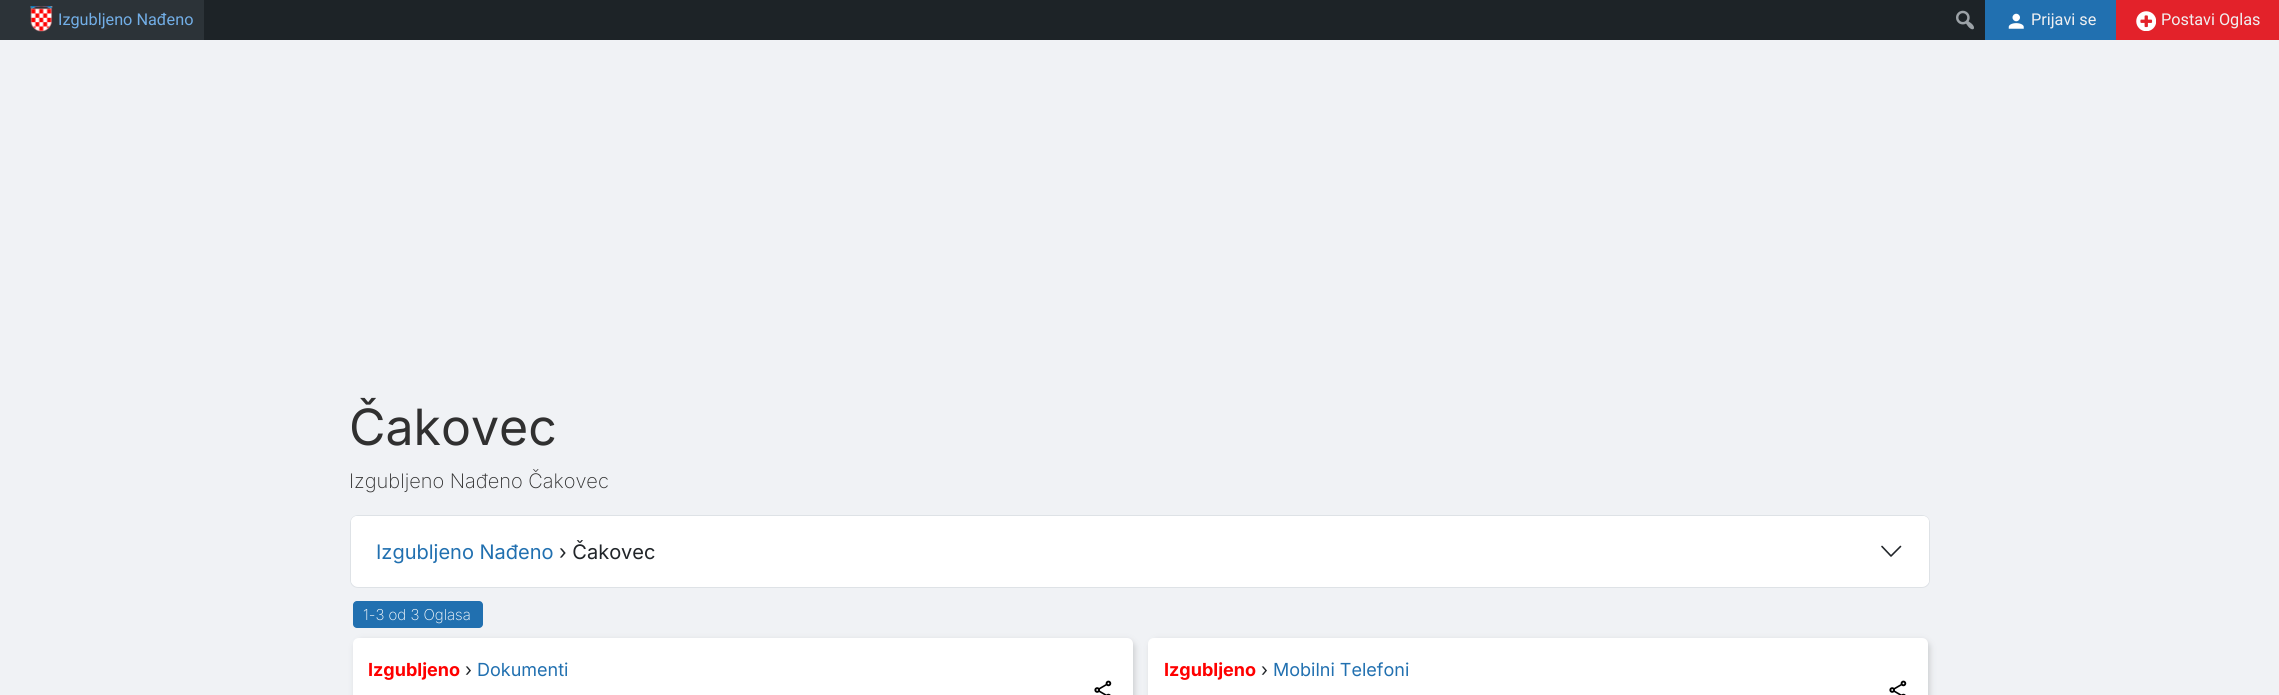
#include <cairo/cairo.h>
#include <math.h>
#include <stddef.h>


static void rounded_rect(cairo_t *cr, double x, double y, double w, double h, double r) {
  cairo_new_sub_path(cr);
  cairo_arc(cr, x + w - r, y + h - r, r, 0, M_PI / 2);
  cairo_arc(cr, x + r, y + h - r, r, M_PI / 2, M_PI);
  cairo_arc(cr, x + r, y + r, r, M_PI, 1.5 * M_PI);
  cairo_arc(cr, x + w - r, y + r, r, 1.5 * M_PI, 2 * M_PI);
  cairo_close_path(cr);
}

static void draw_shadow(cairo_t *cr, double x, double y, double w, double h, double r, double blur, double alpha) {
  cairo_push_group_with_content(cr, CAIRO_CONTENT_ALPHA);
  cairo_set_operator(cr, CAIRO_OPERATOR_SOURCE);
  for (int i = 15; i >= -15 && fmin(w, h) + blur * i / 3 > 0; i -= 2) {
    double e = blur * i / 6;
    cairo_set_source_rgba(cr, 0, 0, 0, alpha * erfc((i - 1) / 8.5) / 2);
    rounded_rect(cr, x - e, y - e, w + 2 * e, h + 2 * e, fmax(0, fmin(r + e + blur * .6, fmin(w, h) / 2 + e)));
    cairo_fill(cr);
  }
  cairo_pattern_t *soft = cairo_pop_group(cr);
  cairo_mask(cr, soft);
  cairo_pattern_destroy(soft);
}

static void draw_image(cairo_t *cr, const char *path, double x, double y, double w, double h) {
  cairo_surface_t *image = cairo_image_surface_create_from_png(path);
  cairo_save(cr);
  cairo_set_source_surface(cr, image, x, y);
  cairo_rectangle(cr, x, y, w, h);
  cairo_fill(cr);
  cairo_restore(cr);
  cairo_surface_destroy(image);
}

static void draw(cairo_t *cr) {
  cairo_set_source_rgb(cr, 240 / 255.0, 242 / 255.0, 245 / 255.0);
  cairo_paint(cr);
  cairo_set_source_rgb(cr, 29 / 255.0, 35 / 255.0, 39 / 255.0);
  cairo_rectangle(cr, 204, 0, 1781, 40);
  cairo_fill(cr);
  draw_image(cr, "images/1.png", 1956, 10, 18, 20);
  cairo_set_source_rgb(cr, 44 / 255.0, 51 / 255.0, 56 / 255.0);
  cairo_rectangle(cr, 0, 0, 204, 40);
  cairo_fill(cr);
  draw_image(cr, "images/2.png", 30, 6, 23, 26);
  cairo_set_source_rgb(cr, 33 / 255.0, 112 / 255.0, 176 / 255.0);
  cairo_rectangle(cr, 1985, 0, 131, 40);
  cairo_fill(cr);
  draw_image(cr, "images/3.png", 2008, 13, 16, 16);
  cairo_set_source_rgb(cr, 227 / 255.0, 34 / 255.0, 42 / 255.0);
  cairo_rectangle(cr, 2116, 0, 163, 40);
  cairo_fill(cr);
  draw_image(cr, "images/4.png", 2136, 11, 20, 20);
  cairo_set_source_rgb(cr, 1, 1, 1);
  rounded_rect(cr, 350.5, 515.5, 1579, 72, 7.5);
  cairo_fill_preserve(cr);
  cairo_set_source_rgb(cr, 222 / 255.0, 226 / 255.0, 230 / 255.0);
  cairo_set_line_width(cr, 1);
  cairo_stroke(cr);
  cairo_set_source_rgb(cr, 1, 1, 1);
  rounded_rect(cr, 351, 516, 1578, 70, 6);
  cairo_fill(cr);
  cairo_new_path(cr);
  cairo_move_to(cr, 1882, 546.5);
  cairo_line_to(cr, 1891, 556);
  cairo_line_to(cr, 1900.5, 546.5);
  cairo_set_source_rgb(cr, 33 / 255.0, 37 / 255.0, 41 / 255.0);
  cairo_set_line_width(cr, 1.6);
  cairo_set_line_cap(cr, CAIRO_LINE_CAP_ROUND);
  cairo_set_line_join(cr, CAIRO_LINE_JOIN_ROUND);
  cairo_stroke(cr);
  cairo_set_source_rgb(cr, 33 / 255.0, 112 / 255.0, 176 / 255.0);
  rounded_rect(cr, 353, 601, 130, 27, 4);
  cairo_fill(cr);
  cairo_set_source_rgb(cr, 205 / 255.0, 207 / 255.0, 209 / 255.0);
  draw_shadow(cr, 355, 640, 780, 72, 8, 3, 1);
  cairo_set_source_rgb(cr, 1, 1, 1);
  cairo_new_path(cr);
  cairo_move_to(cr, 359, 638);
  cairo_line_to(cr, 1127, 638);
  cairo_curve_to(cr, 1130.5, 638, 1133, 640.5, 1133, 644);
  cairo_line_to(cr, 1133, 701);
  cairo_line_to(cr, 353, 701);
  cairo_line_to(cr, 353, 644);
  cairo_curve_to(cr, 353, 640.5, 355.5, 638, 359, 638);
  cairo_close_path(cr);
  cairo_fill(cr);
  draw_image(cr, "images/5.png", 1094, 680, 18, 15);
  cairo_set_source_rgb(cr, 205 / 255.0, 207 / 255.0, 209 / 255.0);
  draw_shadow(cr, 1150, 640, 780, 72, 8, 3, 1);
  cairo_set_source_rgb(cr, 1, 1, 1);
  cairo_new_path(cr);
  cairo_move_to(cr, 1154, 638);
  cairo_line_to(cr, 1922, 638);
  cairo_curve_to(cr, 1925.5, 638, 1928, 640.5, 1928, 644);
  cairo_line_to(cr, 1928, 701);
  cairo_line_to(cr, 1148, 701);
  cairo_line_to(cr, 1148, 644);
  cairo_curve_to(cr, 1148, 640.5, 1150.5, 638, 1154, 638);
  cairo_close_path(cr);
  cairo_fill(cr);
  draw_image(cr, "images/5.png", 1889, 680, 18, 15);
  cairo_select_font_face(cr, "Roboto", CAIRO_FONT_SLANT_NORMAL, CAIRO_FONT_WEIGHT_NORMAL);
  cairo_set_font_size(cr, 16.25);
  cairo_set_source_rgb(cr, 114 / 255.0, 174 / 255.0, 230 / 255.0);
  cairo_move_to(cr, 58, 25);
  cairo_show_text(cr, "Izgubljeno Nađeno");
  cairo_set_source_rgb(cr, 240 / 255.0, 240 / 255.0, 241 / 255.0);
  cairo_move_to(cr, 2031, 25);
  cairo_show_text(cr, "Prijavi se");
  cairo_move_to(cr, 2161, 25);
  cairo_show_text(cr, "Postavi Oglas");
  cairo_select_font_face(cr, "Inter", CAIRO_FONT_SLANT_NORMAL, CAIRO_FONT_WEIGHT_NORMAL);
  cairo_set_font_size(cr, 50);
  cairo_set_source_rgb(cr, 48 / 255.0, 48 / 255.0, 48 / 255.0);
  cairo_move_to(cr, 349, 445);
  cairo_show_text(cr, "Čakovec");
  cairo_select_font_face(cr, "Inter ExtraLight", CAIRO_FONT_SLANT_NORMAL, CAIRO_FONT_WEIGHT_NORMAL);
  cairo_set_font_size(cr, 20);
  cairo_move_to(cr, 349, 488);
  cairo_show_text(cr, "Izgubljeno Nađeno Čakovec");
  cairo_select_font_face(cr, "Inter", CAIRO_FONT_SLANT_NORMAL, CAIRO_FONT_WEIGHT_NORMAL);
  cairo_set_source_rgb(cr, 33 / 255.0, 112 / 255.0, 176 / 255.0);
  cairo_move_to(cr, 376, 559);
  cairo_show_text(cr, "Izgubljeno Nađeno");
  cairo_set_source_rgb(cr, 33 / 255.0, 37 / 255.0, 41 / 255.0);
  cairo_move_to(cr, 559, 559);
  cairo_show_text(cr, "› Čakovec");
  cairo_select_font_face(cr, "Inter ExtraLight", CAIRO_FONT_SLANT_NORMAL, CAIRO_FONT_WEIGHT_NORMAL);
  cairo_set_font_size(cr, 15);
  cairo_set_source_rgb(cr, 1, 1, 1);
  cairo_move_to(cr, 363, 620);
  cairo_show_text(cr, "1-3 od 3 Oglasa");
  cairo_select_font_face(cr, "Inter", CAIRO_FONT_SLANT_NORMAL, CAIRO_FONT_WEIGHT_BOLD);
  cairo_set_font_size(cr, 18);
  cairo_set_source_rgb(cr, 1, 0, 0);
  cairo_move_to(cr, 368, 676);
  cairo_show_text(cr, "Izgubljeno");
  cairo_select_font_face(cr, "Inter", CAIRO_FONT_SLANT_NORMAL, CAIRO_FONT_WEIGHT_NORMAL);
  cairo_set_source_rgb(cr, 33 / 255.0, 37 / 255.0, 41 / 255.0);
  cairo_move_to(cr, 465, 676);
  cairo_show_text(cr, "›");
  cairo_set_source_rgb(cr, 33 / 255.0, 112 / 255.0, 176 / 255.0);
  cairo_move_to(cr, 477, 676);
  cairo_show_text(cr, "Dokumenti");
  cairo_select_font_face(cr, "Inter", CAIRO_FONT_SLANT_NORMAL, CAIRO_FONT_WEIGHT_BOLD);
  cairo_set_source_rgb(cr, 1, 0, 0);
  cairo_move_to(cr, 1164, 676);
  cairo_show_text(cr, "Izgubljeno");
  cairo_select_font_face(cr, "Inter", CAIRO_FONT_SLANT_NORMAL, CAIRO_FONT_WEIGHT_NORMAL);
  cairo_set_source_rgb(cr, 33 / 255.0, 37 / 255.0, 41 / 255.0);
  cairo_move_to(cr, 1261, 676);
  cairo_show_text(cr, "›");
  cairo_set_source_rgb(cr, 33 / 255.0, 112 / 255.0, 176 / 255.0);
  cairo_move_to(cr, 1273, 676);
  cairo_show_text(cr, "Mobilni Telefoni");
}

int main(void) {
  cairo_surface_t *surface = cairo_image_surface_create(CAIRO_FORMAT_RGB24, 2279, 695);
  cairo_t *cr = cairo_create(surface);
  cairo_font_options_t *options = cairo_font_options_create();
  cairo_font_options_set_hint_metrics(options, CAIRO_HINT_METRICS_OFF);
  cairo_font_options_set_hint_style(options, CAIRO_HINT_STYLE_NONE);
  cairo_set_font_options(cr, options);
  cairo_set_miter_limit(cr, 4);
  draw(cr);
  cairo_surface_write_to_png(surface, "out.png");
  cairo_font_options_destroy(options);
  cairo_destroy(cr);
  cairo_surface_destroy(surface);
  return 0;
}
